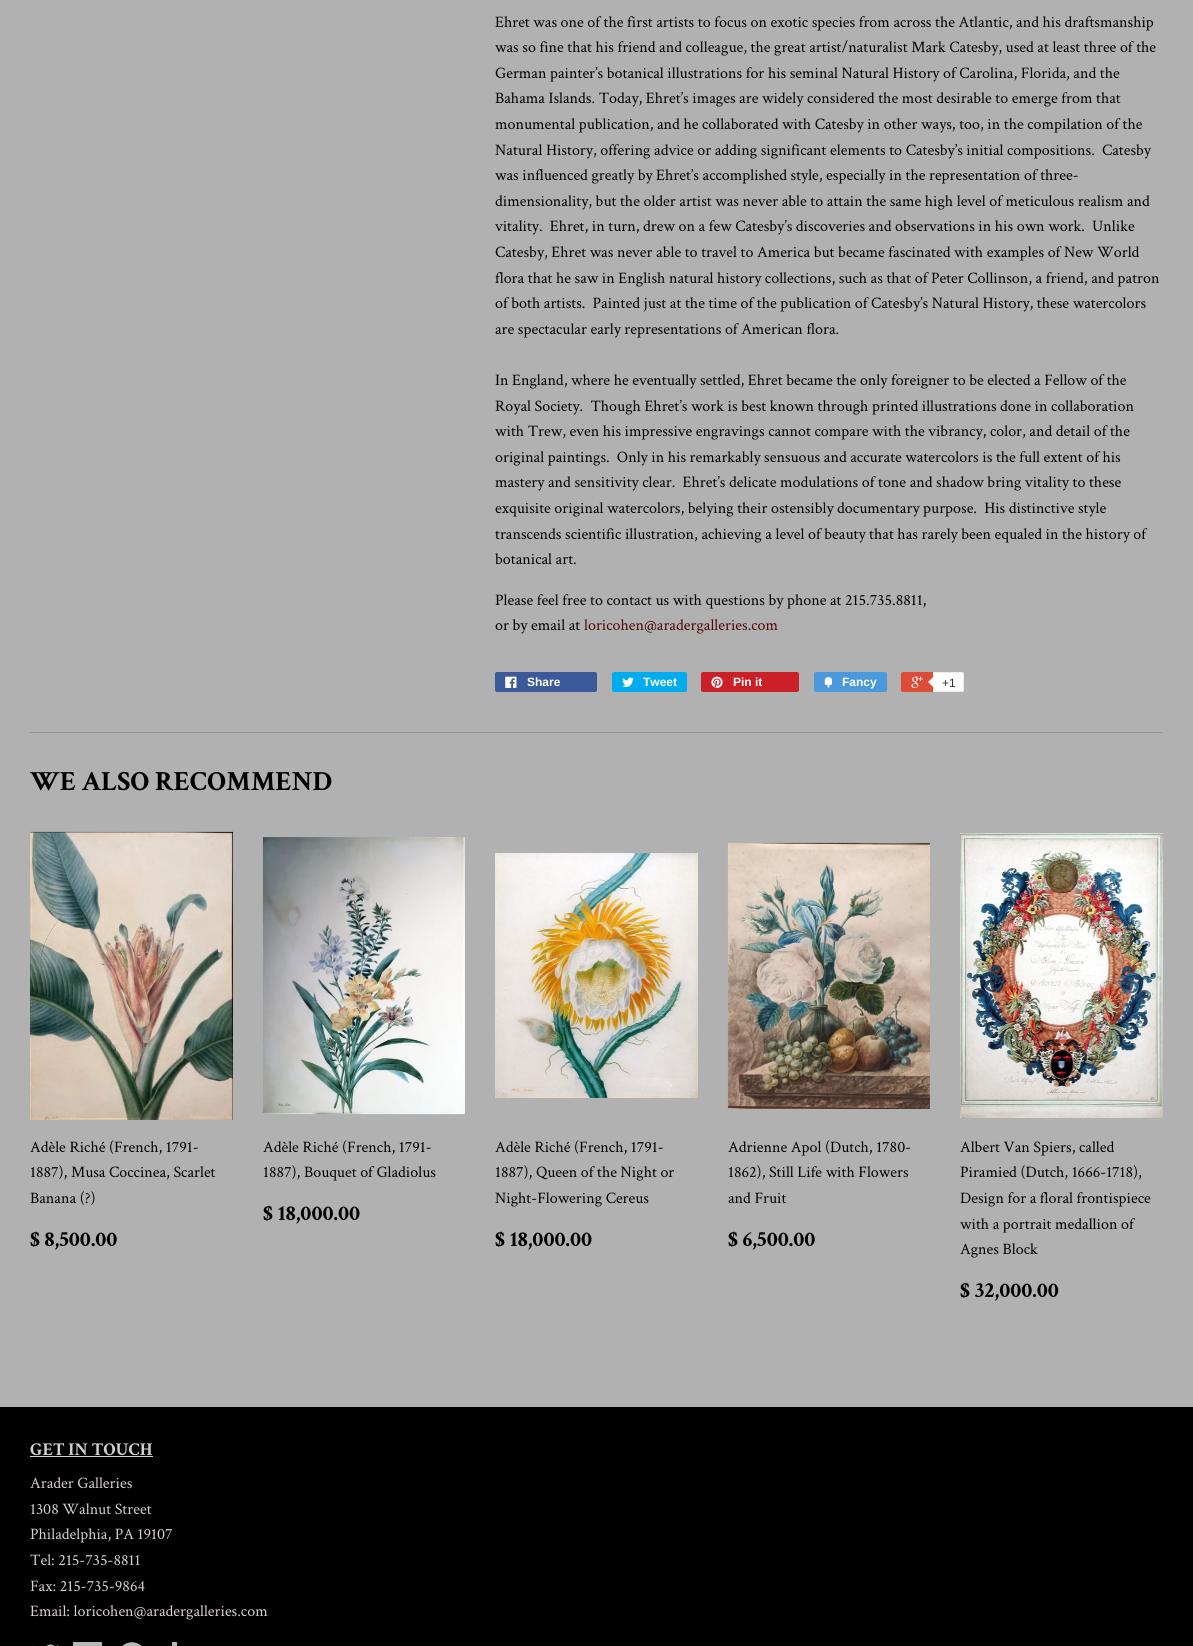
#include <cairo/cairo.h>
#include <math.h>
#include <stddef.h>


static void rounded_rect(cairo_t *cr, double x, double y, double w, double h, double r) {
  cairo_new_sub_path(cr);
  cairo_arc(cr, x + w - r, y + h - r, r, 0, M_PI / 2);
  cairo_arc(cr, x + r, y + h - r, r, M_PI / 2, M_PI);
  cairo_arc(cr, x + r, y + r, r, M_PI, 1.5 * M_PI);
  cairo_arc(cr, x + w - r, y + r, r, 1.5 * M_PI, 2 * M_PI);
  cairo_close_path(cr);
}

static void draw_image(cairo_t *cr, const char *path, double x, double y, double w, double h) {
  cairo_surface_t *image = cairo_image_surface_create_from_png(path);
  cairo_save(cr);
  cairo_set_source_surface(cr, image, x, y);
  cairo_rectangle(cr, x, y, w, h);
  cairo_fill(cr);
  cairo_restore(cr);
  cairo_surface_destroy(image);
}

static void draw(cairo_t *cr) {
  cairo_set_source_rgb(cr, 177 / 255.0, 177 / 255.0, 178 / 255.0);
  cairo_paint(cr);
  cairo_set_source_rgb(cr, 59 / 255.0, 89 / 255.0, 152 / 255.0);
  rounded_rect(cr, 495, 672, 102, 20, 2);
  cairo_fill(cr);
  draw_image(cr, "images/1.png", 505, 676, 12, 12);
  cairo_set_source_rgb(cr, 0, 172 / 255.0, 237 / 255.0);
  rounded_rect(cr, 612, 672, 75, 20, 2);
  cairo_fill(cr);
  draw_image(cr, "images/2.png", 622, 677, 12, 10);
  cairo_set_source_rgb(cr, 203 / 255.0, 32 / 255.0, 39 / 255.0);
  rounded_rect(cr, 701, 672, 98, 20, 2);
  cairo_fill(cr);
  draw_image(cr, "images/3.png", 711, 676, 12, 12);
  cairo_set_source_rgb(cr, 73 / 255.0, 153 / 255.0, 220 / 255.0);
  rounded_rect(cr, 814, 672, 73, 20, 2);
  cairo_fill(cr);
  draw_image(cr, "images/4.png", 824, 677, 9, 11);
  cairo_set_source_rgb(cr, 221 / 255.0, 75 / 255.0, 57 / 255.0);
  rounded_rect(cr, 901, 672, 61, 20, 2);
  cairo_fill(cr);
  draw_image(cr, "images/5.png", 911, 676, 12, 12);
  cairo_set_source_rgb(cr, 1, 1, 1);
  cairo_new_path(cr);
  cairo_move_to(cr, 933.5, 672.5);
  cairo_line_to(cr, 962, 672.5);
  cairo_curve_to(cr, 963, 672.5, 963.5, 673, 963.5, 674);
  cairo_line_to(cr, 963.5, 690);
  cairo_curve_to(cr, 963.5, 691, 963, 691.5, 962, 691.5);
  cairo_line_to(cr, 933.5, 691.5);
  cairo_close_path(cr);
  cairo_fill_preserve(cr);
  cairo_set_source_rgb(cr, 236 / 255.0, 236 / 255.0, 236 / 255.0);
  cairo_set_line_width(cr, 1);
  cairo_stroke(cr);
  cairo_new_path(cr);
  cairo_move_to(cr, 934, 676);
  cairo_line_to(cr, 934, 688);
  cairo_line_to(cr, 928, 682);
  cairo_close_path(cr);
  cairo_fill(cr);
  cairo_set_source_rgb(cr, 1, 1, 1);
  cairo_new_path(cr);
  cairo_move_to(cr, 935, 676);
  cairo_line_to(cr, 935, 688);
  cairo_line_to(cr, 929, 682);
  cairo_close_path(cr);
  cairo_fill(cr);
  cairo_set_source_rgb(cr, 151 / 255.0, 151 / 255.0, 151 / 255.0);
  cairo_rectangle(cr, 30, 732, 1133, 1);
  cairo_fill(cr);
  draw_image(cr, "images/6.png", 30, 831, 203, 289);
  draw_image(cr, "images/7.png", 262, 837, 203, 278);
  draw_image(cr, "images/8.png", 495, 853, 203, 245);
  draw_image(cr, "images/9.png", 727, 842, 203, 267);
  draw_image(cr, "images/10.png", 960, 833, 203, 285);
  cairo_set_source_rgb(cr, 0, 0, 0);
  cairo_rectangle(cr, 0, 1407, 1193, 239);
  cairo_fill(cr);
  cairo_set_source_rgb(cr, 215 / 255.0, 206 / 255.0, 206 / 255.0);
  cairo_rectangle(cr, 30, 1456, 123, 1);
  cairo_fill(cr);
  draw_image(cr, "images/11.png", 32, 1644, 27, 2);
  cairo_set_source_rgb(cr, 184 / 255.0, 184 / 255.0, 184 / 255.0);
  cairo_rectangle(cr, 73, 1642, 29, 4);
  cairo_fill(cr);
  draw_image(cr, "images/12.png", 122, 1642, 20, 4);
  cairo_rectangle(cr, 172, 1642, 5, 4);
  cairo_fill(cr);
  cairo_select_font_face(cr, "Crimson Text", CAIRO_FONT_SLANT_NORMAL, CAIRO_FONT_WEIGHT_NORMAL);
  cairo_set_font_size(cr, 16);
  cairo_set_source_rgb(cr, 0, 0, 0);
  cairo_move_to(cr, 495, 27);
  cairo_show_text(cr, "Ehret was one of the first artists to focus on exotic species from across the Atlantic, and his draftsmanship");
  cairo_move_to(cr, 495, 52);
  cairo_show_text(cr, "was so fine that his friend and colleague, the great artist/naturalist Mark Catesby, used at least three of the");
  cairo_move_to(cr, 495, 78);
  cairo_show_text(cr, "German painter’s botanical illustrations for his seminal Natural History of Carolina, Florida, and the");
  cairo_move_to(cr, 495, 103);
  cairo_show_text(cr, "Bahama Islands. Today, Ehret’s images are widely considered the most desirable to emerge from that");
  cairo_move_to(cr, 495, 129);
  cairo_show_text(cr, "monumental publication, and he collaborated with Catesby in other ways, too, in the compilation of the");
  cairo_move_to(cr, 495, 155);
  cairo_show_text(cr, "Natural History, offering advice or adding significant elements to Catesby’s initial compositions.  Catesby");
  cairo_move_to(cr, 495, 180);
  cairo_show_text(cr, "was influenced greatly by Ehret’s accomplished style, especially in the representation of three-");
  cairo_move_to(cr, 495, 206);
  cairo_show_text(cr, "dimensionality, but the older artist was never able to attain the same high level of meticulous realism and");
  cairo_move_to(cr, 495, 231);
  cairo_show_text(cr, "vitality.  Ehret, in turn, drew on a few Catesby’s discoveries and observations in his own work.  Unlike");
  cairo_move_to(cr, 495, 257);
  cairo_show_text(cr, "Catesby, Ehret was never able to travel to America but became fascinated with examples of New World");
  cairo_move_to(cr, 495, 283);
  cairo_show_text(cr, "flora that he saw in English natural history collections, such as that of Peter Collinson, a friend, and patron");
  cairo_move_to(cr, 495, 308);
  cairo_show_text(cr, "of both artists.  Painted just at the time of the publication of Catesby’s Natural History, these watercolors");
  cairo_move_to(cr, 495, 334);
  cairo_show_text(cr, "are spectacular early representations of American flora.");
  cairo_move_to(cr, 495, 385);
  cairo_show_text(cr, "In England, where he eventually settled, Ehret became the only foreigner to be elected a Fellow of the");
  cairo_move_to(cr, 495, 411);
  cairo_show_text(cr, "Royal Society.  Though Ehret’s work is best known through printed illustrations done in collaboration");
  cairo_move_to(cr, 495, 436);
  cairo_show_text(cr, "with Trew, even his impressive engravings cannot compare with the vibrancy, color, and detail of the");
  cairo_move_to(cr, 495, 462);
  cairo_show_text(cr, "original paintings.  Only in his remarkably sensuous and accurate watercolors is the full extent of his");
  cairo_move_to(cr, 495, 487);
  cairo_show_text(cr, "mastery and sensitivity clear.  Ehret’s delicate modulations of tone and shadow bring vitality to these");
  cairo_move_to(cr, 495, 513);
  cairo_show_text(cr, "exquisite original watercolors, belying their ostensibly documentary purpose.  His distinctive style");
  cairo_move_to(cr, 495, 539);
  cairo_show_text(cr, "transcends scientific illustration, achieving a level of beauty that has rarely been equaled in the history of");
  cairo_move_to(cr, 495, 564);
  cairo_show_text(cr, "botanical art.");
  cairo_move_to(cr, 495, 605);
  cairo_show_text(cr, "Please feel free to contact us with questions by phone at 215.735.8811,");
  cairo_move_to(cr, 495, 630);
  cairo_show_text(cr, "or by email at");
  cairo_set_source_rgb(cr, 81 / 255.0, 6 / 255.0, 6 / 255.0);
  cairo_move_to(cr, 584, 630);
  cairo_show_text(cr, "loricohen@aradergalleries.com");
  cairo_select_font_face(cr, "Liberation Sans", CAIRO_FONT_SLANT_NORMAL, CAIRO_FONT_WEIGHT_BOLD);
  cairo_set_font_size(cr, 12);
  cairo_set_source_rgb(cr, 1, 1, 1);
  cairo_move_to(cr, 527, 686);
  cairo_show_text(cr, "Share");
  cairo_move_to(cr, 643, 686);
  cairo_show_text(cr, "Tweet");
  cairo_move_to(cr, 733, 686);
  cairo_show_text(cr, "Pin it");
  cairo_move_to(cr, 842, 686);
  cairo_show_text(cr, "Fancy");
  cairo_select_font_face(cr, "Liberation Sans", CAIRO_FONT_SLANT_NORMAL, CAIRO_FONT_WEIGHT_NORMAL);
  cairo_set_source_rgb(cr, 51 / 255.0, 51 / 255.0, 51 / 255.0);
  cairo_move_to(cr, 942, 687);
  cairo_show_text(cr, "+1");
  cairo_select_font_face(cr, "Crimson Text", CAIRO_FONT_SLANT_NORMAL, CAIRO_FONT_WEIGHT_BOLD);
  cairo_set_font_size(cr, 27.75);
  cairo_set_source_rgb(cr, 0, 0, 0);
  cairo_move_to(cr, 30, 790);
  cairo_show_text(cr, "WE ALSO RECOMMEND");
  cairo_select_font_face(cr, "Crimson Text", CAIRO_FONT_SLANT_NORMAL, CAIRO_FONT_WEIGHT_NORMAL);
  cairo_set_font_size(cr, 16);
  cairo_move_to(cr, 30, 1152);
  cairo_show_text(cr, "Adèle Riché (French, 1791-");
  cairo_move_to(cr, 30, 1177);
  cairo_show_text(cr, "1887), Musa Coccinea, Scarlet");
  cairo_move_to(cr, 30, 1203);
  cairo_show_text(cr, "Banana (?)");
  cairo_select_font_face(cr, "Crimson Text", CAIRO_FONT_SLANT_NORMAL, CAIRO_FONT_WEIGHT_BOLD);
  cairo_set_font_size(cr, 22);
  cairo_move_to(cr, 30, 1246);
  cairo_show_text(cr, "$ 8,500.00");
  cairo_select_font_face(cr, "Crimson Text", CAIRO_FONT_SLANT_NORMAL, CAIRO_FONT_WEIGHT_NORMAL);
  cairo_set_font_size(cr, 16);
  cairo_move_to(cr, 263, 1152);
  cairo_show_text(cr, "Adèle Riché (French, 1791-");
  cairo_move_to(cr, 263, 1177);
  cairo_show_text(cr, "1887), Bouquet of Gladiolus");
  cairo_select_font_face(cr, "Crimson Text", CAIRO_FONT_SLANT_NORMAL, CAIRO_FONT_WEIGHT_BOLD);
  cairo_set_font_size(cr, 22);
  cairo_move_to(cr, 263, 1220);
  cairo_show_text(cr, "$ 18,000.00");
  cairo_select_font_face(cr, "Crimson Text", CAIRO_FONT_SLANT_NORMAL, CAIRO_FONT_WEIGHT_NORMAL);
  cairo_set_font_size(cr, 16);
  cairo_move_to(cr, 495, 1152);
  cairo_show_text(cr, "Adèle Riché (French, 1791-");
  cairo_move_to(cr, 495, 1177);
  cairo_show_text(cr, "1887), Queen of the Night or");
  cairo_move_to(cr, 495, 1203);
  cairo_show_text(cr, "Night-Flowering Cereus");
  cairo_select_font_face(cr, "Crimson Text", CAIRO_FONT_SLANT_NORMAL, CAIRO_FONT_WEIGHT_BOLD);
  cairo_set_font_size(cr, 22);
  cairo_move_to(cr, 495, 1246);
  cairo_show_text(cr, "$ 18,000.00");
  cairo_select_font_face(cr, "Crimson Text", CAIRO_FONT_SLANT_NORMAL, CAIRO_FONT_WEIGHT_NORMAL);
  cairo_set_font_size(cr, 16);
  cairo_move_to(cr, 728, 1152);
  cairo_show_text(cr, "Adrienne Apol (Dutch, 1780-");
  cairo_move_to(cr, 728, 1177);
  cairo_show_text(cr, "1862), Still Life with Flowers");
  cairo_move_to(cr, 728, 1203);
  cairo_show_text(cr, "and Fruit");
  cairo_select_font_face(cr, "Crimson Text", CAIRO_FONT_SLANT_NORMAL, CAIRO_FONT_WEIGHT_BOLD);
  cairo_set_font_size(cr, 22);
  cairo_move_to(cr, 728, 1246);
  cairo_show_text(cr, "$ 6,500.00");
  cairo_select_font_face(cr, "Crimson Text", CAIRO_FONT_SLANT_NORMAL, CAIRO_FONT_WEIGHT_NORMAL);
  cairo_set_font_size(cr, 16);
  cairo_move_to(cr, 960, 1152);
  cairo_show_text(cr, "Albert Van Spiers, called");
  cairo_move_to(cr, 960, 1177);
  cairo_show_text(cr, "Piramied (Dutch, 1666-1718),");
  cairo_move_to(cr, 960, 1203);
  cairo_show_text(cr, "Design for a floral frontispiece");
  cairo_move_to(cr, 960, 1229);
  cairo_show_text(cr, "with a portrait medallion of");
  cairo_move_to(cr, 960, 1254);
  cairo_show_text(cr, "Agnes Block");
  cairo_select_font_face(cr, "Crimson Text", CAIRO_FONT_SLANT_NORMAL, CAIRO_FONT_WEIGHT_BOLD);
  cairo_set_font_size(cr, 22);
  cairo_move_to(cr, 960, 1297);
  cairo_show_text(cr, "$ 32,000.00");
  cairo_set_font_size(cr, 18);
  cairo_set_source_rgb(cr, 215 / 255.0, 206 / 255.0, 206 / 255.0);
  cairo_move_to(cr, 30, 1455);
  cairo_show_text(cr, "GET IN TOUCH");
  cairo_select_font_face(cr, "Crimson Text", CAIRO_FONT_SLANT_NORMAL, CAIRO_FONT_WEIGHT_NORMAL);
  cairo_set_font_size(cr, 16);
  cairo_move_to(cr, 30, 1488);
  cairo_show_text(cr, "Arader Galleries");
  cairo_move_to(cr, 30, 1514);
  cairo_show_text(cr, "1308 Walnut Street");
  cairo_move_to(cr, 30, 1539);
  cairo_show_text(cr, "Philadelphia, PA 19107");
  cairo_move_to(cr, 30, 1565);
  cairo_show_text(cr, "Tel: 215-735-8811");
  cairo_move_to(cr, 30, 1591);
  cairo_show_text(cr, "Fax: 215-735-9864");
  cairo_move_to(cr, 30, 1616);
  cairo_show_text(cr, "Email: loricohen@aradergalleries.com");
}

int main(void) {
  cairo_surface_t *surface = cairo_image_surface_create(CAIRO_FORMAT_RGB24, 1193, 1646);
  cairo_t *cr = cairo_create(surface);
  cairo_font_options_t *options = cairo_font_options_create();
  cairo_font_options_set_hint_metrics(options, CAIRO_HINT_METRICS_OFF);
  cairo_font_options_set_hint_style(options, CAIRO_HINT_STYLE_NONE);
  cairo_set_font_options(cr, options);
  cairo_set_miter_limit(cr, 4);
  draw(cr);
  cairo_surface_write_to_png(surface, "out.png");
  cairo_font_options_destroy(options);
  cairo_destroy(cr);
  cairo_surface_destroy(surface);
  return 0;
}
